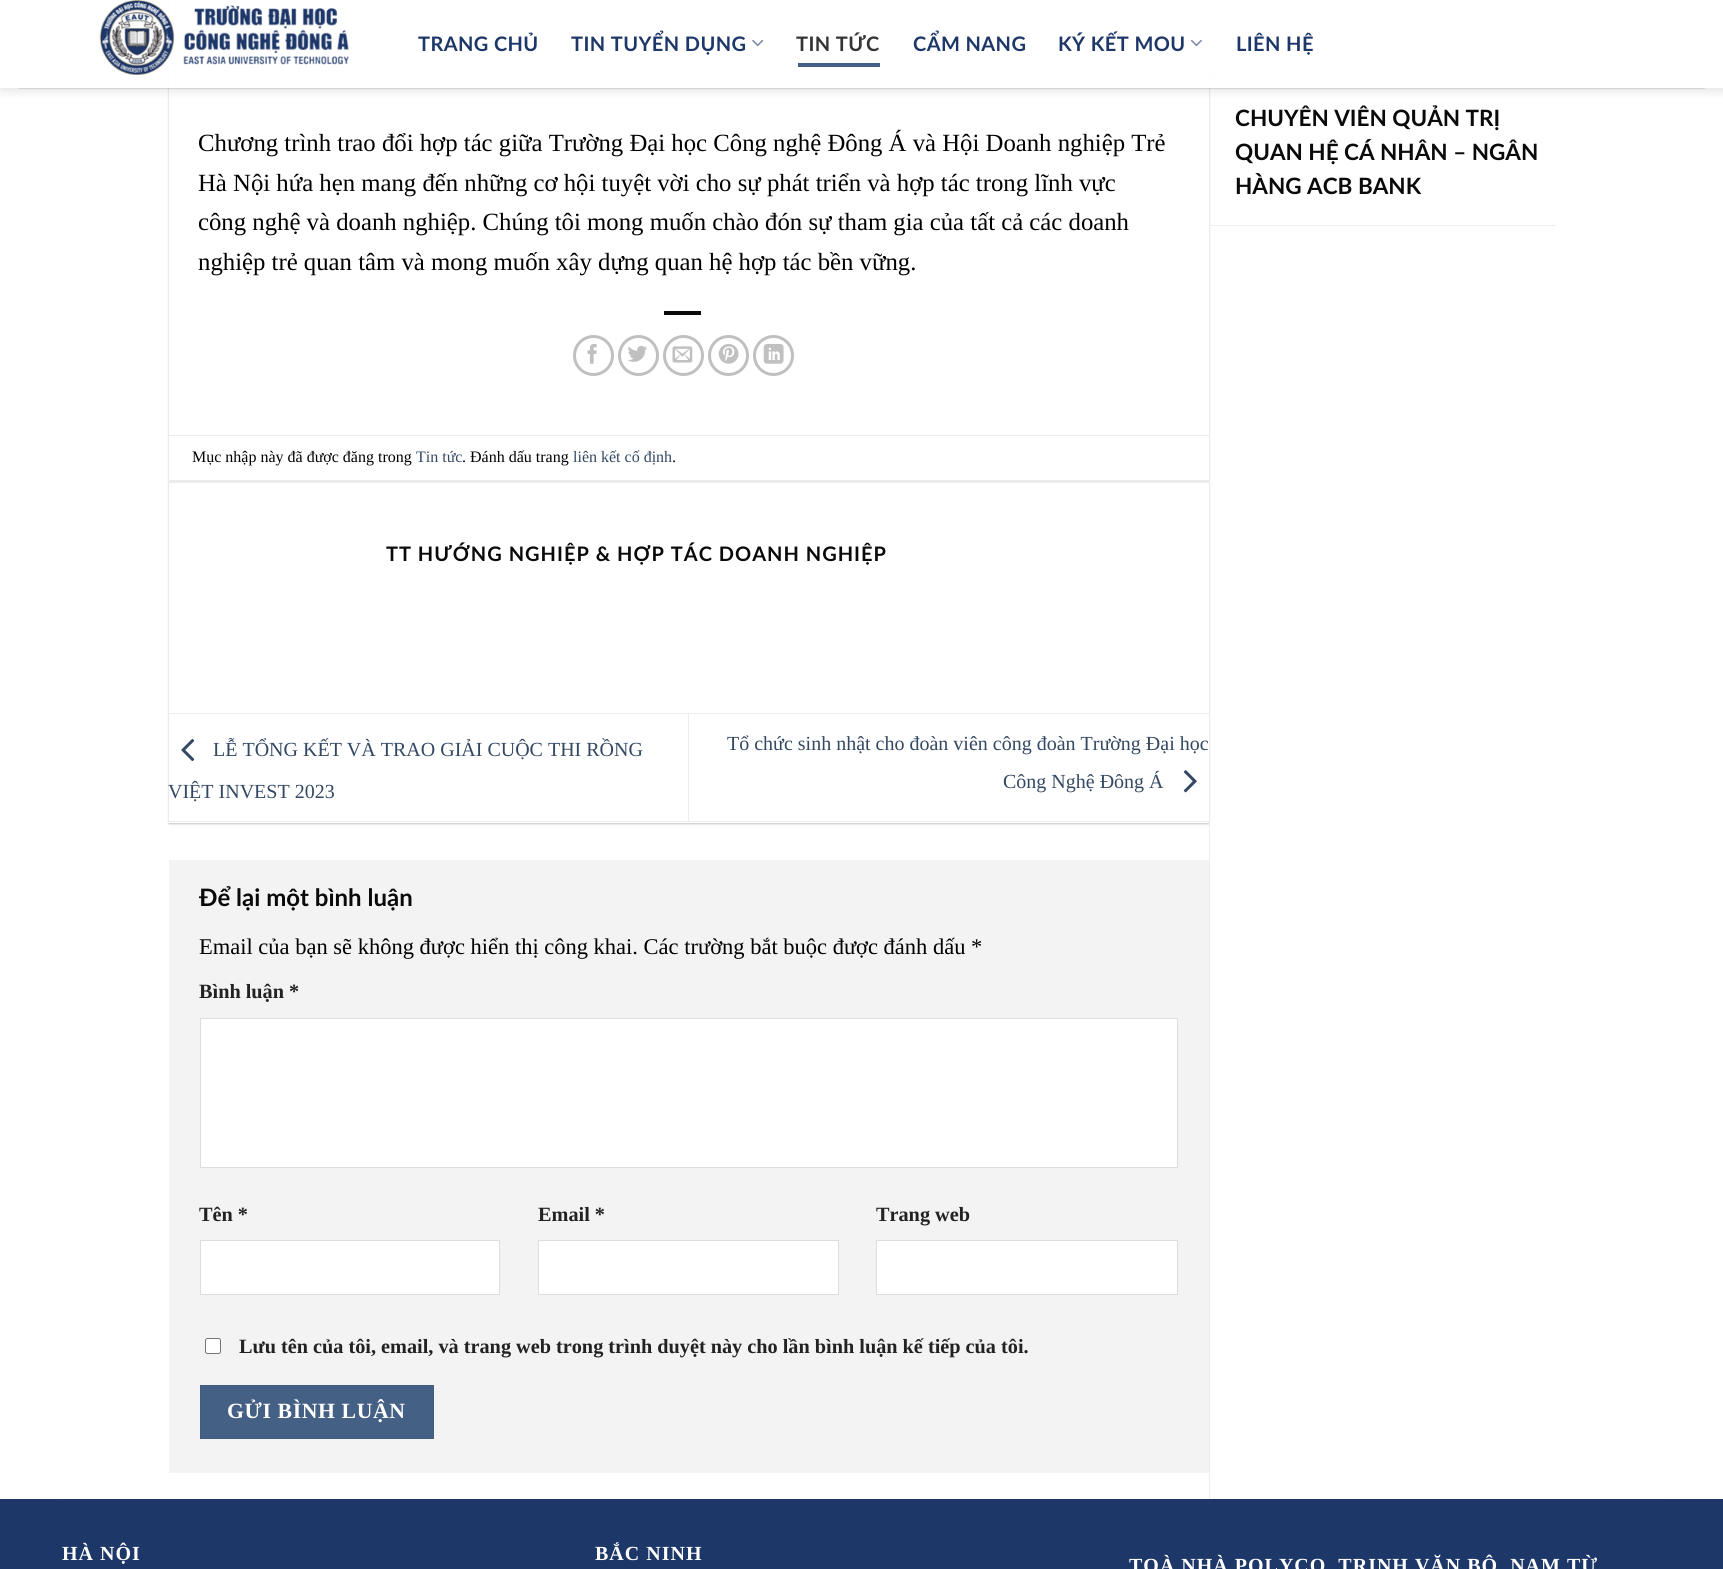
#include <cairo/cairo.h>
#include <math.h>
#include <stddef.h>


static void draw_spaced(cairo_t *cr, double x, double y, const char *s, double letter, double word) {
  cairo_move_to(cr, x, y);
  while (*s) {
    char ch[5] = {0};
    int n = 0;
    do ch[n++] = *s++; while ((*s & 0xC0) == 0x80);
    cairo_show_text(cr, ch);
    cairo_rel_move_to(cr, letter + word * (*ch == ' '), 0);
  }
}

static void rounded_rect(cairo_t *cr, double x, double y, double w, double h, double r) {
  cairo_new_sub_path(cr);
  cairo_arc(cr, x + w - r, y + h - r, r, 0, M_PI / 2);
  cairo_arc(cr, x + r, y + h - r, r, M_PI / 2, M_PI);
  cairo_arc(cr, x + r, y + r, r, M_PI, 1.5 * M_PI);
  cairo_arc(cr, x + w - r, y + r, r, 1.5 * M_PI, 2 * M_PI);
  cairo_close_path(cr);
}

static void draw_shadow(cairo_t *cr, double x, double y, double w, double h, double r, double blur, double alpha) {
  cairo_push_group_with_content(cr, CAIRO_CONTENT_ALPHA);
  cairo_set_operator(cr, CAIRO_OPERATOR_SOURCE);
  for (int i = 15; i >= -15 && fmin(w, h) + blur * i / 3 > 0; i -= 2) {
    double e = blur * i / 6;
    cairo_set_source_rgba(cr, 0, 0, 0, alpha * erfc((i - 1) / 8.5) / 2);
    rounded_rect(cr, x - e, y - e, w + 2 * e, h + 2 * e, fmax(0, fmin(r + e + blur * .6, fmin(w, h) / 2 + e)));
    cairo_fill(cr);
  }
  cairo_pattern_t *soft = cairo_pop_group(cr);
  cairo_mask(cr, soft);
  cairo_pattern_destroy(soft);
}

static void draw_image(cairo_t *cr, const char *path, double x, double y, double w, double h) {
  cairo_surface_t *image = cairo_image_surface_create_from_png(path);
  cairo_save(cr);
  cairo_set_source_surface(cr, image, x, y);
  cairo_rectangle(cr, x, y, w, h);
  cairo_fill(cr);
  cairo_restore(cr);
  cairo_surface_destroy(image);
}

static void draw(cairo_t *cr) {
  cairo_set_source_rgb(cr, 1, 1, 1);
  cairo_paint(cr);
  cairo_set_source_rgb(cr, 0, 0, 0);
  draw_shadow(cr, 169, -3, 1040, 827, 0, 1, 0.24);
  cairo_set_source_rgb(cr, 1, 1, 1);
  cairo_rectangle(cr, 169, 0, 1040, 823);
  cairo_fill(cr);
  cairo_set_source_rgb(cr, 238 / 255.0, 238 / 255.0, 238 / 255.0);
  cairo_rectangle(cr, 1210, 76, 346, 1);
  cairo_fill(cr);
  cairo_set_source_rgb(cr, 236 / 255.0, 236 / 255.0, 236 / 255.0);
  cairo_rectangle(cr, 1210, 78, 346, 1);
  cairo_fill(cr);
  cairo_save(cr);
  cairo_set_fill_rule(cr, CAIRO_FILL_RULE_EVEN_ODD);
  cairo_new_path(cr);
  cairo_move_to(cr, 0, 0);
  cairo_line_to(cr, 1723, 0);
  cairo_line_to(cr, 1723, 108);
  cairo_line_to(cr, 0, 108);
  cairo_close_path(cr);
  cairo_move_to(cr, 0, 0);
  cairo_line_to(cr, 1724, 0);
  cairo_line_to(cr, 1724, 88);
  cairo_line_to(cr, 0, 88);
  cairo_close_path(cr);
  cairo_clip(cr);
  cairo_set_source_rgb(cr, 0, 0, 0);
  draw_shadow(cr, 1, 1, 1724, 88, 0, 6, 0.15);
  cairo_restore(cr);
  cairo_set_source_rgba(cr, 1, 1, 1, 0.9);
  cairo_rectangle(cr, 0, 0, 1723, 88);
  cairo_fill(cr);
  draw_image(cr, "images/1.png", 99, 0, 250, 75);
  draw_image(cr, "images/2.png", 752, 39, 12, 8);
  cairo_set_source_rgb(cr, 68 / 255.0, 96 / 255.0, 132 / 255.0);
  cairo_rectangle(cr, 798, 63, 82, 4);
  cairo_fill(cr);
  draw_image(cr, "images/3.png", 1190, 39, 12, 8);
  cairo_set_source_rgba(cr, 0, 0, 0, 0.1);
  cairo_rectangle(cr, 19, 88, 1686, 1);
  cairo_fill(cr);
  cairo_set_source_rgb(cr, 10 / 255.0, 10 / 255.0, 10 / 255.0);
  cairo_rectangle(cr, 664, 311, 37, 4);
  cairo_fill(cr);
  cairo_arc(cr, 593.5, 355.5, 19, 0, 2 * M_PI);
  cairo_set_source_rgb(cr, 192 / 255.0, 192 / 255.0, 192 / 255.0);
  cairo_set_line_width(cr, 3);
  cairo_stroke(cr);
  draw_image(cr, "images/4.png", 587, 343, 10, 21);
  cairo_arc(cr, 638.5, 355.5, 19, 0, 2 * M_PI);
  cairo_stroke(cr);
  draw_image(cr, "images/5.png", 628, 345, 19, 17);
  cairo_arc(cr, 683.5, 355.5, 19, 0, 2 * M_PI);
  cairo_stroke(cr);
  draw_image(cr, "images/6.png", 672, 346, 21, 17);
  cairo_arc(cr, 728.5, 355.5, 19, 0, 2 * M_PI);
  cairo_stroke(cr);
  draw_image(cr, "images/7.png", 718, 344, 21, 20);
  cairo_arc(cr, 773.5, 355.5, 19, 0, 2 * M_PI);
  cairo_stroke(cr);
  draw_image(cr, "images/8.png", 763, 343, 21, 21);
  cairo_set_source_rgb(cr, 236 / 255.0, 236 / 255.0, 236 / 255.0);
  cairo_rectangle(cr, 169, 435, 1040, 1);
  cairo_fill(cr);
  cairo_rectangle(cr, 169, 480, 1040, 3);
  cairo_fill(cr);
  cairo_rectangle(cr, 169, 713, 1040, 1);
  cairo_fill(cr);
  cairo_rectangle(cr, 169, 821, 1040, 1);
  cairo_fill(cr);
  draw_image(cr, "images/9.png", 181, 738, 14, 24);
  cairo_rectangle(cr, 688, 714, 1, 107);
  cairo_fill(cr);
  draw_image(cr, "images/10.png", 1183, 770, 14, 23);
  cairo_set_source_rgb(cr, 243 / 255.0, 243 / 255.0, 243 / 255.0);
  cairo_rectangle(cr, 169, 860, 1040, 613);
  cairo_fill(cr);
  cairo_set_source_rgb(cr, 1, 1, 1);
  cairo_rectangle(cr, 200.5, 1018.5, 977, 149);
  cairo_fill_preserve(cr);
  cairo_set_source_rgb(cr, 221 / 255.0, 221 / 255.0, 221 / 255.0);
  cairo_set_line_width(cr, 1);
  cairo_stroke(cr);
  cairo_set_source_rgb(cr, 1, 1, 1);
  cairo_rectangle(cr, 200.5, 1240.5, 299, 54);
  cairo_fill_preserve(cr);
  cairo_set_source_rgb(cr, 221 / 255.0, 221 / 255.0, 221 / 255.0);
  cairo_stroke(cr);
  cairo_set_source_rgb(cr, 1, 1, 1);
  cairo_rectangle(cr, 538.5, 1240.5, 300, 54);
  cairo_fill_preserve(cr);
  cairo_set_source_rgb(cr, 221 / 255.0, 221 / 255.0, 221 / 255.0);
  cairo_stroke(cr);
  cairo_set_source_rgb(cr, 1, 1, 1);
  cairo_rectangle(cr, 876.5, 1240.5, 301, 54);
  cairo_fill_preserve(cr);
  cairo_set_source_rgb(cr, 221 / 255.0, 221 / 255.0, 221 / 255.0);
  cairo_stroke(cr);
  cairo_set_source_rgb(cr, 1, 1, 1);
  rounded_rect(cr, 205.5, 1338.5, 15, 15, 2);
  cairo_fill_preserve(cr);
  cairo_set_source_rgb(cr, 118 / 255.0, 118 / 255.0, 118 / 255.0);
  cairo_stroke(cr);
  cairo_set_source_rgb(cr, 68 / 255.0, 96 / 255.0, 132 / 255.0);
  cairo_rectangle(cr, 200.5, 1385.5, 233, 53);
  cairo_fill_preserve(cr);
  cairo_set_source_rgb(cr, 65 / 255.0, 91 / 255.0, 125 / 255.0);
  cairo_stroke(cr);
  cairo_set_source_rgb(cr, 236 / 255.0, 236 / 255.0, 236 / 255.0);
  cairo_rectangle(cr, 1209, 823, 1, 676);
  cairo_fill(cr);
  cairo_set_source_rgb(cr, 238 / 255.0, 238 / 255.0, 238 / 255.0);
  cairo_rectangle(cr, 1210, 225, 346, 1);
  cairo_fill(cr);
  cairo_set_source_rgb(cr, 30 / 255.0, 55 / 255.0, 105 / 255.0);
  cairo_rectangle(cr, 0, 1499, 1723, 70);
  cairo_fill(cr);
  cairo_set_source_rgb(cr, 29 / 255.0, 52 / 255.0, 100 / 255.0);
  cairo_rectangle(cr, 63, 1499, 1600, 1);
  cairo_fill(cr);
  cairo_select_font_face(cr, "Lato", CAIRO_FONT_SLANT_NORMAL, CAIRO_FONT_WEIGHT_BOLD);
  cairo_set_font_size(cr, 20);
  cairo_set_source_rgb(cr, 30 / 255.0, 55 / 255.0, 105 / 255.0);
  draw_spaced(cr, 418, 51, "TRANG CHỦ", 0.4, 0);
  draw_spaced(cr, 571, 51, "TIN TUYỂN DỤNG", 0.4, 0);
  cairo_set_source_rgb(cr, 52 / 255.0, 52 / 255.0, 52 / 255.0);
  draw_spaced(cr, 796, 51, "TIN TỨC", 0.4, 0);
  cairo_set_source_rgb(cr, 30 / 255.0, 55 / 255.0, 105 / 255.0);
  draw_spaced(cr, 913, 51, "CẨM NANG", 0.4, 0);
  draw_spaced(cr, 1058, 51, "KÝ KẾT MOU", 0.4, 0);
  draw_spaced(cr, 1236, 51, "LIÊN HỆ", 0.4, 0);
  cairo_select_font_face(cr, "Liberation Serif", CAIRO_FONT_SLANT_NORMAL, CAIRO_FONT_WEIGHT_NORMAL);
  cairo_set_font_size(cr, 24.75);
  cairo_set_source_rgb(cr, 0, 0, 0);
  cairo_move_to(cr, 198, 151);
  cairo_show_text(cr, "Chương trình trao đổi hợp tác giữa Trường Đại học Công nghệ Đông Á và Hội Doanh nghiệp Trẻ");
  cairo_move_to(cr, 198, 191);
  cairo_show_text(cr, "Hà Nội hứa hẹn mang đến những cơ hội tuyệt vời cho sự phát triển và hợp tác trong lĩnh vực");
  cairo_move_to(cr, 198, 230);
  cairo_show_text(cr, "công nghệ và doanh nghiệp. Chúng tôi mong muốn chào đón sự tham gia của tất cả các doanh");
  cairo_move_to(cr, 198, 270);
  cairo_show_text(cr, "nghiệp trẻ quan tâm và mong muốn xây dựng quan hệ hợp tác bền vững.");
  cairo_set_font_size(cr, 16);
  cairo_move_to(cr, 192, 462);
  cairo_show_text(cr, "Mục nhập này đã được đăng trong");
  cairo_set_source_rgb(cr, 51 / 255.0, 72 / 255.0, 98 / 255.0);
  cairo_move_to(cr, 416, 462);
  cairo_show_text(cr, "Tin tức");
  cairo_set_source_rgb(cr, 0, 0, 0);
  cairo_move_to(cr, 462, 462);
  cairo_show_text(cr, ". Đánh dấu trang");
  cairo_set_source_rgb(cr, 51 / 255.0, 72 / 255.0, 98 / 255.0);
  cairo_move_to(cr, 573, 462);
  cairo_show_text(cr, "liên kết cố định");
  cairo_set_source_rgb(cr, 0, 0, 0);
  cairo_move_to(cr, 672, 462);
  cairo_show_text(cr, ".");
  cairo_select_font_face(cr, "Lato", CAIRO_FONT_SLANT_NORMAL, CAIRO_FONT_WEIGHT_BOLD);
  cairo_set_font_size(cr, 20);
  cairo_set_source_rgb(cr, 10 / 255.0, 10 / 255.0, 10 / 255.0);
  draw_spaced(cr, 386, 561, "TT HƯỚNG NGHIỆP & HỢP TÁC DOANH NGHIỆP", 1, 0);
  cairo_select_font_face(cr, "Liberation Serif", CAIRO_FONT_SLANT_NORMAL, CAIRO_FONT_WEIGHT_NORMAL);
  cairo_set_source_rgb(cr, 51 / 255.0, 72 / 255.0, 98 / 255.0);
  cairo_move_to(cr, 213, 756);
  cairo_show_text(cr, "LỄ TỔNG KẾT VÀ TRAO GIẢI CUỘC THI RỒNG");
  cairo_move_to(cr, 168, 798);
  cairo_show_text(cr, "VIỆT INVEST 2023");
  cairo_move_to(cr, 727, 750);
  cairo_show_text(cr, "Tổ chức sinh nhật cho đoàn viên công đoàn Trường Đại học");
  cairo_move_to(cr, 1003, 788);
  cairo_show_text(cr, "Công Nghệ Đông Á");
  cairo_select_font_face(cr, "Lato", CAIRO_FONT_SLANT_NORMAL, CAIRO_FONT_WEIGHT_BOLD);
  cairo_set_font_size(cr, 24);
  cairo_set_source_rgb(cr, 10 / 255.0, 10 / 255.0, 10 / 255.0);
  cairo_move_to(cr, 199, 906);
  cairo_show_text(cr, "Để lại một bình luận");
  cairo_select_font_face(cr, "Liberation Serif", CAIRO_FONT_SLANT_NORMAL, CAIRO_FONT_WEIGHT_NORMAL);
  cairo_set_font_size(cr, 22.5);
  cairo_set_source_rgb(cr, 0, 0, 0);
  cairo_move_to(cr, 199, 954);
  cairo_show_text(cr, "Email của bạn sẽ không được hiển thị công khai. Các trường bắt buộc được đánh dấu *");
  cairo_select_font_face(cr, "Liberation Serif", CAIRO_FONT_SLANT_NORMAL, CAIRO_FONT_WEIGHT_BOLD);
  cairo_set_font_size(cr, 20.25);
  cairo_set_source_rgb(cr, 34 / 255.0, 34 / 255.0, 34 / 255.0);
  cairo_move_to(cr, 199, 998);
  cairo_show_text(cr, "Bình luận *");
  cairo_move_to(cr, 199, 1221);
  cairo_show_text(cr, "Tên *");
  cairo_move_to(cr, 538, 1221);
  cairo_show_text(cr, "Email *");
  cairo_move_to(cr, 876, 1221);
  cairo_show_text(cr, "Trang web");
  cairo_move_to(cr, 239, 1353);
  cairo_show_text(cr, "Lưu tên của tôi, email, và trang web trong trình duyệt này cho lần bình luận kế tiếp của tôi.");
  cairo_set_font_size(cr, 21.75);
  cairo_set_source_rgb(cr, 1, 1, 1);
  draw_spaced(cr, 227, 1418, "GỬI BÌNH LUẬN", 0.6, 0);
  cairo_select_font_face(cr, "Lato", CAIRO_FONT_SLANT_NORMAL, CAIRO_FONT_WEIGHT_BOLD);
  cairo_set_font_size(cr, 22.5);
  cairo_set_source_rgb(cr, 10 / 255.0, 10 / 255.0, 10 / 255.0);
  cairo_move_to(cr, 1235, 126);
  cairo_show_text(cr, "CHUYÊN VIÊN QUẢN TRỊ");
  cairo_move_to(cr, 1235, 160);
  cairo_show_text(cr, "QUAN HỆ CÁ NHÂN – NGÂN");
  cairo_move_to(cr, 1235, 194);
  cairo_show_text(cr, "HÀNG ACB BANK");
  cairo_select_font_face(cr, "Liberation Serif", CAIRO_FONT_SLANT_NORMAL, CAIRO_FONT_WEIGHT_BOLD);
  cairo_set_font_size(cr, 20);
  cairo_set_source_rgb(cr, 1, 1, 1);
  draw_spaced(cr, 62, 1560, "HÀ NỘI", 1, 0);
  draw_spaced(cr, 595, 1560, "BẮC NINH", 1, 0);
  draw_spaced(cr, 1129, 1572, "TOÀ NHÀ POLYCO, TRỊNH VĂN BÔ, NAM TỪ", 1, 0);
}

int main(void) {
  cairo_surface_t *surface = cairo_image_surface_create(CAIRO_FORMAT_RGB24, 1723, 1569);
  cairo_t *cr = cairo_create(surface);
  cairo_font_options_t *options = cairo_font_options_create();
  cairo_font_options_set_hint_metrics(options, CAIRO_HINT_METRICS_OFF);
  cairo_font_options_set_hint_style(options, CAIRO_HINT_STYLE_NONE);
  cairo_set_font_options(cr, options);
  cairo_set_miter_limit(cr, 4);
  draw(cr);
  cairo_surface_write_to_png(surface, "out.png");
  cairo_font_options_destroy(options);
  cairo_destroy(cr);
  cairo_surface_destroy(surface);
  return 0;
}
